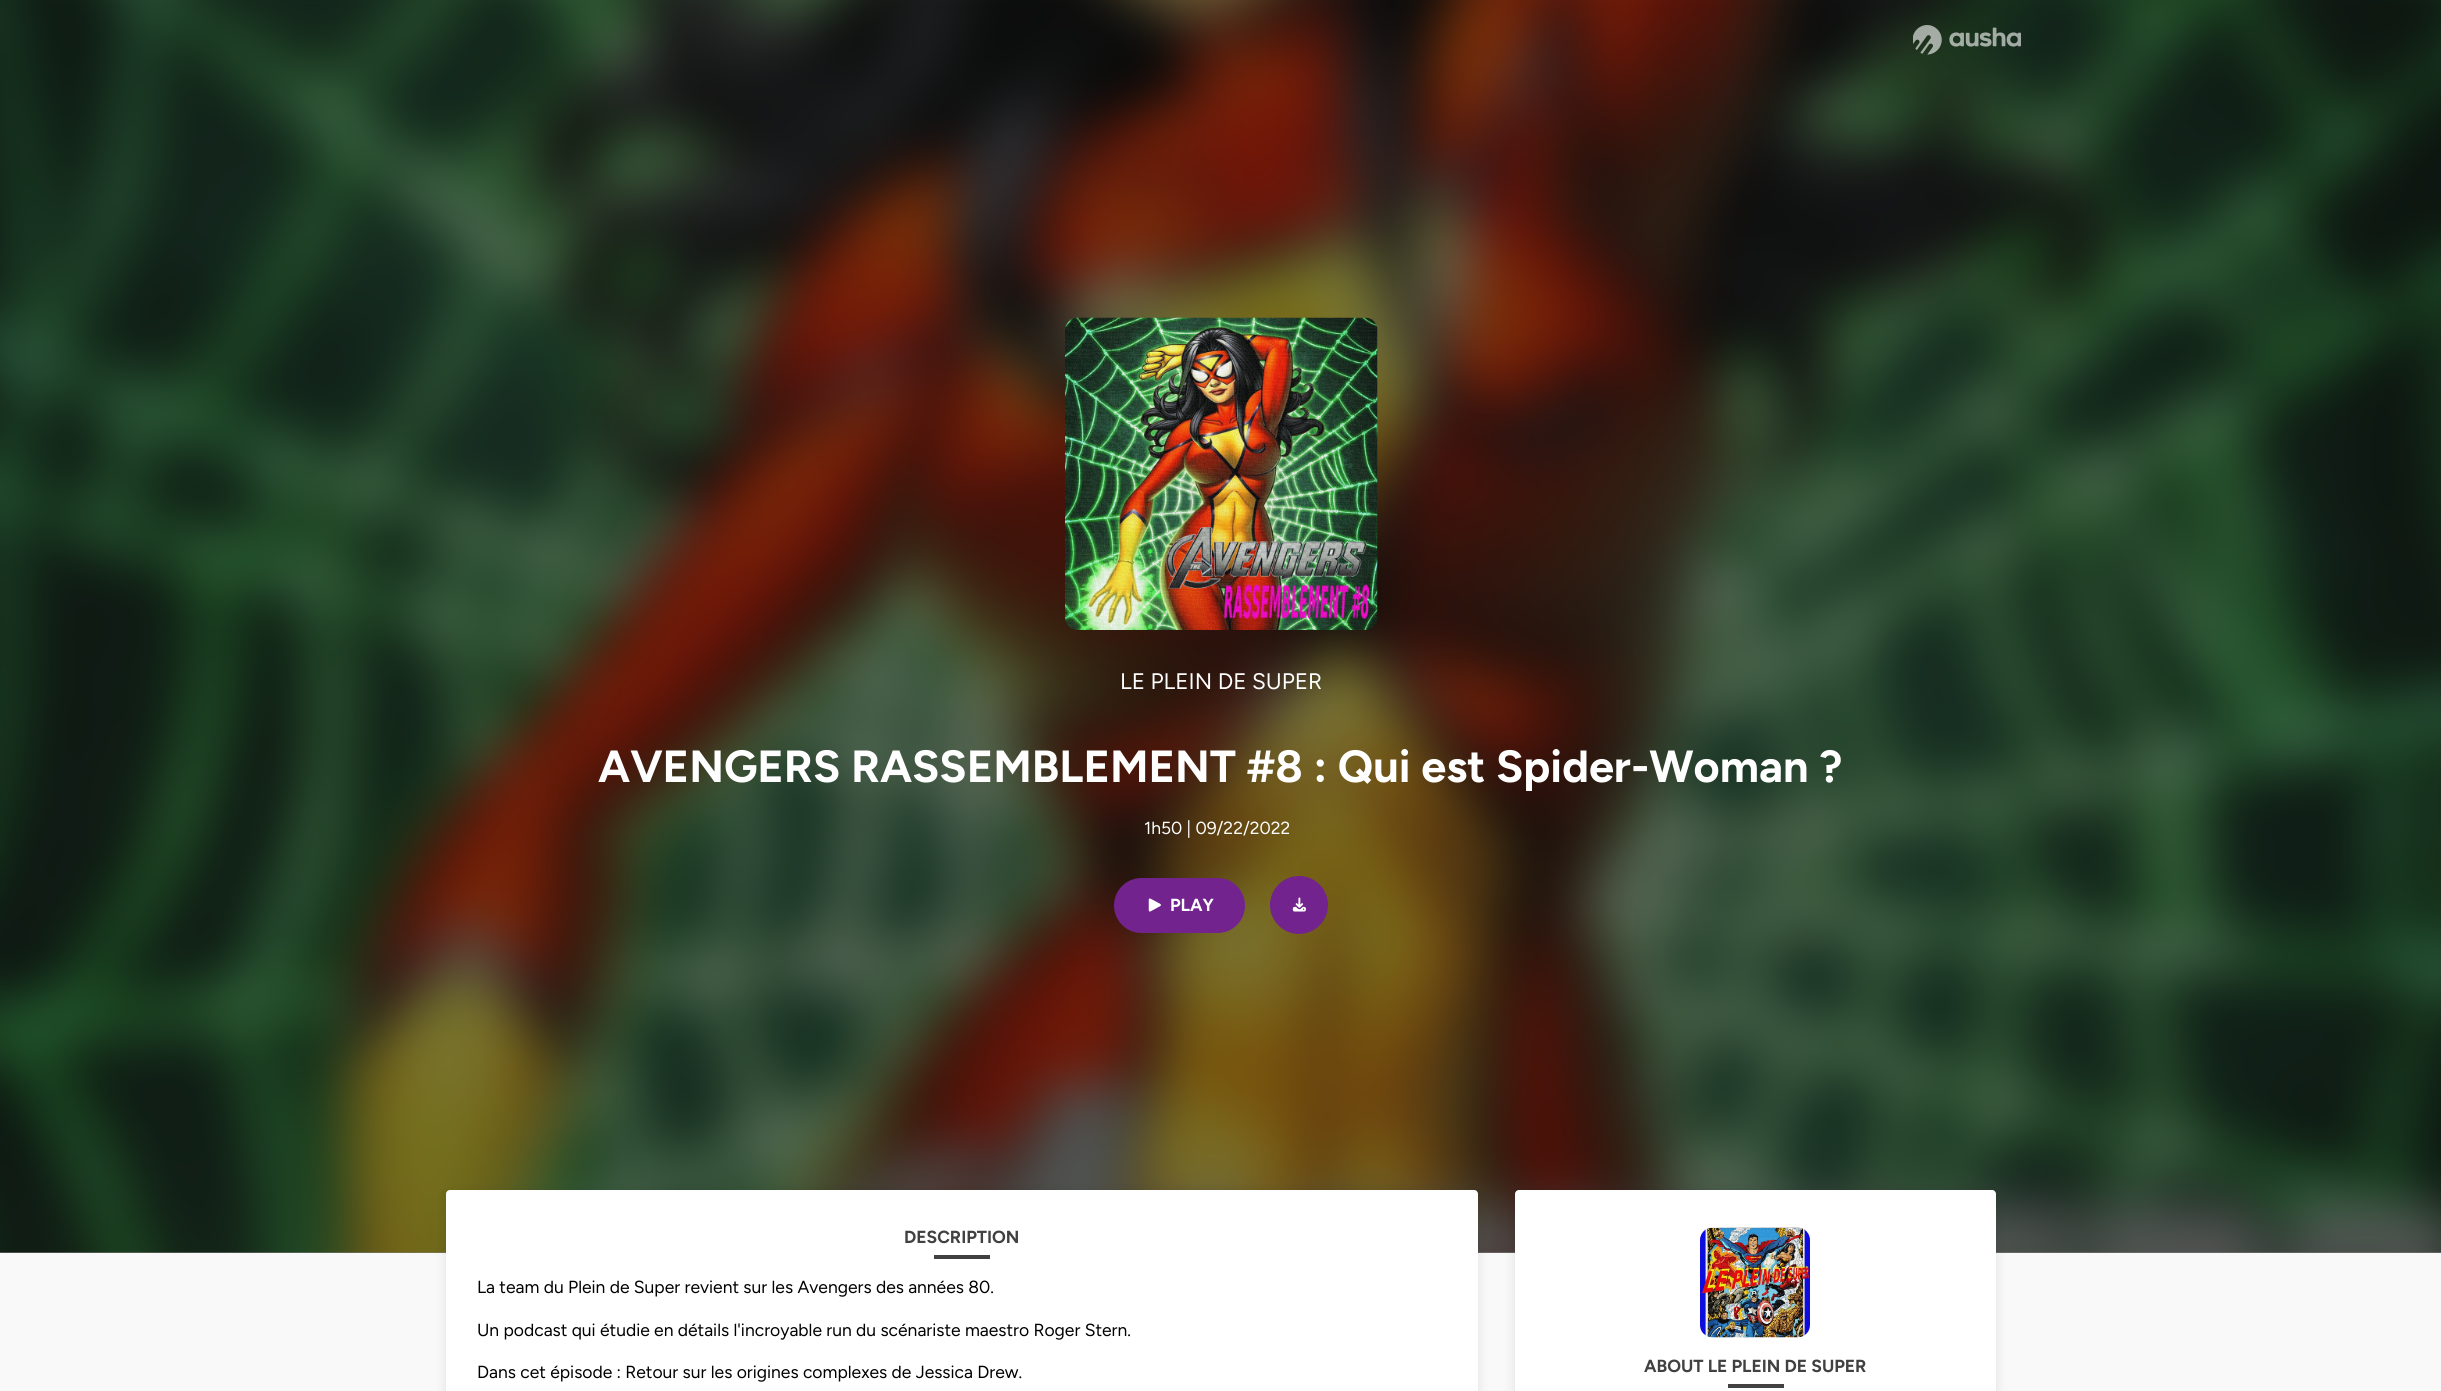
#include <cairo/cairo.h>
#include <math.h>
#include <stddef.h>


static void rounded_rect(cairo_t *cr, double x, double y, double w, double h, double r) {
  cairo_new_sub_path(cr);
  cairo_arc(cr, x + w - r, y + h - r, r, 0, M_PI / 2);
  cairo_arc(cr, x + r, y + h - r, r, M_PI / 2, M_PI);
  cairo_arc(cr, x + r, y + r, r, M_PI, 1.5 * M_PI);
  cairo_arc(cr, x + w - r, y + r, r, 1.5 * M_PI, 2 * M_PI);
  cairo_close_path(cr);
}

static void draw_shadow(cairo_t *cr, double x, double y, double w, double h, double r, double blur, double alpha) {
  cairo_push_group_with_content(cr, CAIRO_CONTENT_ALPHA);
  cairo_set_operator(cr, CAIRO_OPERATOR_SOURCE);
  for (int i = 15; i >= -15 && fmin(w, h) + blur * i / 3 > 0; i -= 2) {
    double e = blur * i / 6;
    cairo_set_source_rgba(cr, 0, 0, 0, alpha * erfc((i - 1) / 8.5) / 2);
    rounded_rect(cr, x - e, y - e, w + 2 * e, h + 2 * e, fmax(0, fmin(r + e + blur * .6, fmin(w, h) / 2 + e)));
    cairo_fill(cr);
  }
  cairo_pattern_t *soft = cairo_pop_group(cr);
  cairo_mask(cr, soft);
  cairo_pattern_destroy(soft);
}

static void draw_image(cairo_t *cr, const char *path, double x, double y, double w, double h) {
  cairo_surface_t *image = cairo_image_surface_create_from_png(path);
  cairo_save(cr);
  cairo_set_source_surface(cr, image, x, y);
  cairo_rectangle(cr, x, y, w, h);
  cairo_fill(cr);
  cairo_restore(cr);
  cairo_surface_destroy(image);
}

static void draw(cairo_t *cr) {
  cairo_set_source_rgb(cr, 1, 1, 1);
  cairo_paint(cr);
  draw_image(cr, "images/1.png", 0, 0, 2441, 1253);
  cairo_set_source_rgb(cr, 0, 0, 0);
  draw_shadow(cr, -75, -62, 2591, 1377, 0, 25, 0.5);
  draw_image(cr, "images/2.png", 1913, 25, 108, 30);
  draw_image(cr, "images/3.png", 1065, 317, 313, 313);
  cairo_set_source_rgb(cr, 114 / 255.0, 35 / 255.0, 142 / 255.0);
  rounded_rect(cr, 1114, 878, 131, 55, 27.5);
  cairo_fill(cr);
  draw_image(cr, "images/4.png", 1148, 898, 13, 14);
  cairo_arc(cr, 1299, 905, 29, 0, 2 * M_PI);
  cairo_fill(cr);
  draw_image(cr, "images/5.png", 1292, 897, 14, 15);
  cairo_set_source_rgb(cr, 249 / 255.0, 249 / 255.0, 249 / 255.0);
  cairo_rectangle(cr, 0, 1253, 2441, 138);
  cairo_fill(cr);
  cairo_set_source_rgb(cr, 0, 0, 0);
  draw_shadow(cr, 446, 1193, 1032, 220, 4, 6, 0.1);
  cairo_set_source_rgb(cr, 1, 1, 1);
  rounded_rect(cr, 446, 1190, 1032, 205, 4);
  cairo_fill(cr);
  cairo_set_source_rgb(cr, 65 / 255.0, 65 / 255.0, 65 / 255.0);
  cairo_rectangle(cr, 934, 1255, 56, 4);
  cairo_fill(cr);
  cairo_set_source_rgb(cr, 0, 0, 0);
  draw_shadow(cr, 1515, 1193, 481, 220, 4, 6, 0.1);
  cairo_set_source_rgb(cr, 1, 1, 1);
  rounded_rect(cr, 1515, 1190, 481, 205, 4);
  cairo_fill(cr);
  draw_image(cr, "images/6.png", 1700, 1227, 110, 111);
  cairo_set_source_rgb(cr, 65 / 255.0, 65 / 255.0, 65 / 255.0);
  cairo_rectangle(cr, 1728, 1384, 56, 4);
  cairo_fill(cr);
  cairo_select_font_face(cr, "Figtree", CAIRO_FONT_SLANT_NORMAL, CAIRO_FONT_WEIGHT_NORMAL);
  cairo_set_font_size(cr, 22.5);
  cairo_set_source_rgb(cr, 1, 1, 1);
  cairo_move_to(cr, 1120, 689);
  cairo_show_text(cr, "LE PLEIN DE SUPER");
  cairo_select_font_face(cr, "Figtree", CAIRO_FONT_SLANT_NORMAL, CAIRO_FONT_WEIGHT_BOLD);
  cairo_set_font_size(cr, 45);
  cairo_move_to(cr, 598, 782);
  cairo_show_text(cr, "AVENGERS RASSEMBLEMENT #8 : Qui est Spider-Woman ?");
  cairo_select_font_face(cr, "Figtree", CAIRO_FONT_SLANT_NORMAL, CAIRO_FONT_WEIGHT_NORMAL);
  cairo_set_font_size(cr, 17.5);
  cairo_move_to(cr, 1144, 834);
  cairo_show_text(cr, "1h50 | 09/22/2022");
  cairo_select_font_face(cr, "Figtree", CAIRO_FONT_SLANT_NORMAL, CAIRO_FONT_WEIGHT_BOLD);
  cairo_move_to(cr, 1170, 911);
  cairo_show_text(cr, "PLAY");
  cairo_set_source_rgb(cr, 65 / 255.0, 65 / 255.0, 65 / 255.0);
  cairo_move_to(cr, 904, 1243);
  cairo_show_text(cr, "DESCRIPTION");
  cairo_select_font_face(cr, "Figtree", CAIRO_FONT_SLANT_NORMAL, CAIRO_FONT_WEIGHT_NORMAL);
  cairo_set_source_rgb(cr, 0, 0, 0);
  cairo_move_to(cr, 477, 1293);
  cairo_show_text(cr, "La team du Plein de Super revient sur les Avengers des années 80.");
  cairo_move_to(cr, 477, 1336);
  cairo_show_text(cr, "Un podcast qui étudie en détails l'incroyable run du scénariste maestro Roger Stern.");
  cairo_move_to(cr, 477, 1378);
  cairo_show_text(cr, "Dans cet épisode : Retour sur les origines complexes de Jessica Drew.");
  cairo_select_font_face(cr, "Figtree", CAIRO_FONT_SLANT_NORMAL, CAIRO_FONT_WEIGHT_BOLD);
  cairo_set_source_rgb(cr, 65 / 255.0, 65 / 255.0, 65 / 255.0);
  cairo_move_to(cr, 1644, 1372);
  cairo_show_text(cr, "ABOUT LE PLEIN DE SUPER");
}

int main(void) {
  cairo_surface_t *surface = cairo_image_surface_create(CAIRO_FORMAT_RGB24, 2441, 1391);
  cairo_t *cr = cairo_create(surface);
  cairo_font_options_t *options = cairo_font_options_create();
  cairo_font_options_set_hint_metrics(options, CAIRO_HINT_METRICS_OFF);
  cairo_font_options_set_hint_style(options, CAIRO_HINT_STYLE_NONE);
  cairo_set_font_options(cr, options);
  cairo_set_miter_limit(cr, 4);
  draw(cr);
  cairo_surface_write_to_png(surface, "out.png");
  cairo_font_options_destroy(options);
  cairo_destroy(cr);
  cairo_surface_destroy(surface);
  return 0;
}
